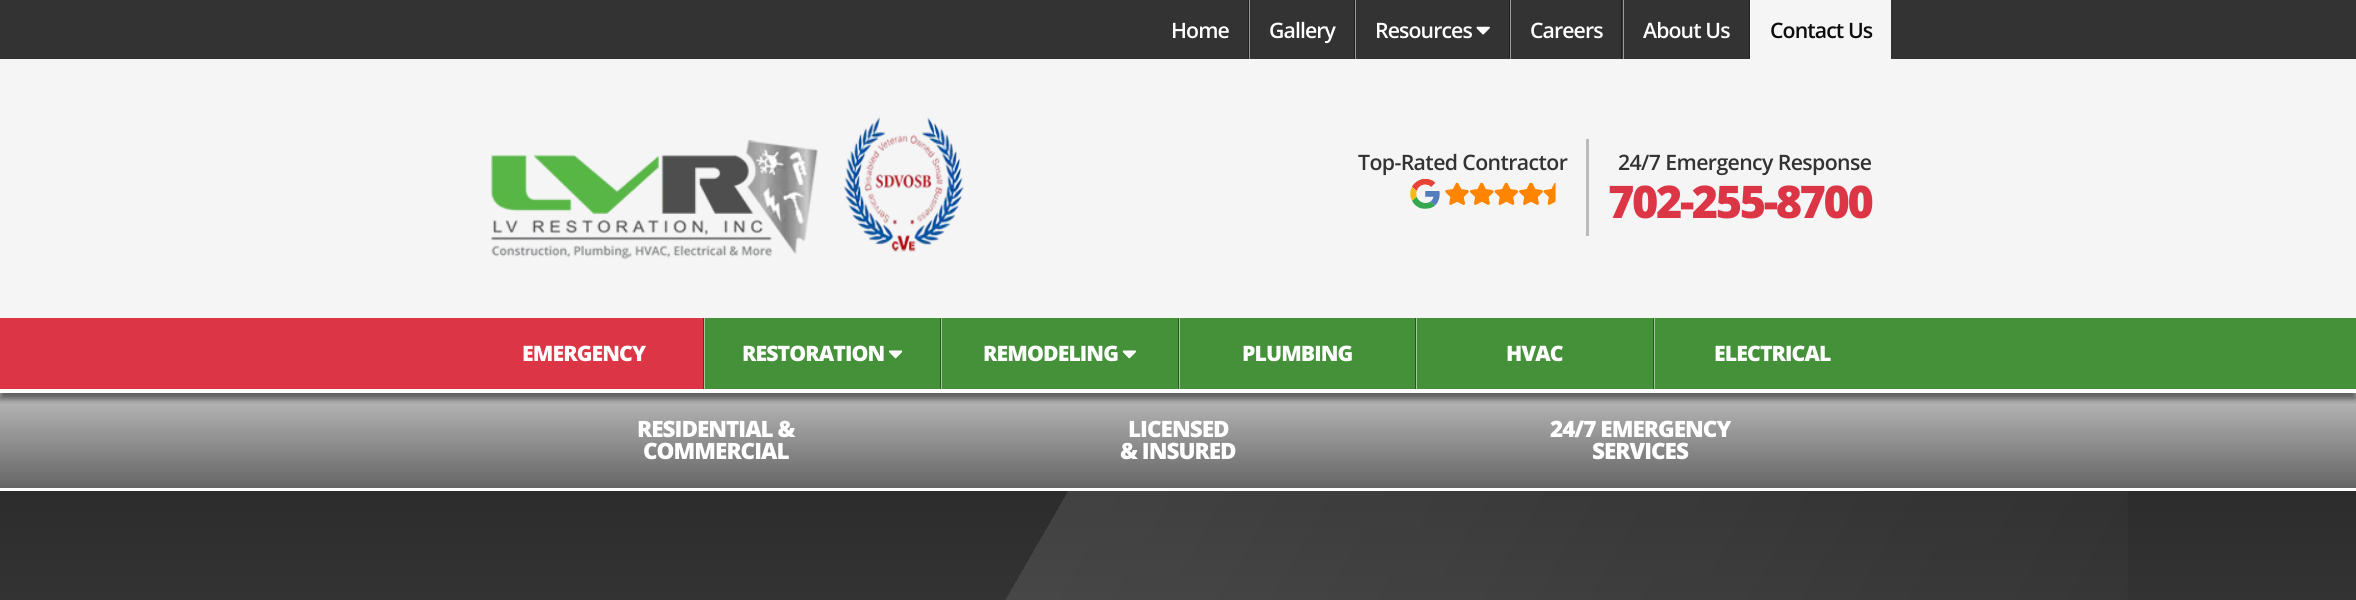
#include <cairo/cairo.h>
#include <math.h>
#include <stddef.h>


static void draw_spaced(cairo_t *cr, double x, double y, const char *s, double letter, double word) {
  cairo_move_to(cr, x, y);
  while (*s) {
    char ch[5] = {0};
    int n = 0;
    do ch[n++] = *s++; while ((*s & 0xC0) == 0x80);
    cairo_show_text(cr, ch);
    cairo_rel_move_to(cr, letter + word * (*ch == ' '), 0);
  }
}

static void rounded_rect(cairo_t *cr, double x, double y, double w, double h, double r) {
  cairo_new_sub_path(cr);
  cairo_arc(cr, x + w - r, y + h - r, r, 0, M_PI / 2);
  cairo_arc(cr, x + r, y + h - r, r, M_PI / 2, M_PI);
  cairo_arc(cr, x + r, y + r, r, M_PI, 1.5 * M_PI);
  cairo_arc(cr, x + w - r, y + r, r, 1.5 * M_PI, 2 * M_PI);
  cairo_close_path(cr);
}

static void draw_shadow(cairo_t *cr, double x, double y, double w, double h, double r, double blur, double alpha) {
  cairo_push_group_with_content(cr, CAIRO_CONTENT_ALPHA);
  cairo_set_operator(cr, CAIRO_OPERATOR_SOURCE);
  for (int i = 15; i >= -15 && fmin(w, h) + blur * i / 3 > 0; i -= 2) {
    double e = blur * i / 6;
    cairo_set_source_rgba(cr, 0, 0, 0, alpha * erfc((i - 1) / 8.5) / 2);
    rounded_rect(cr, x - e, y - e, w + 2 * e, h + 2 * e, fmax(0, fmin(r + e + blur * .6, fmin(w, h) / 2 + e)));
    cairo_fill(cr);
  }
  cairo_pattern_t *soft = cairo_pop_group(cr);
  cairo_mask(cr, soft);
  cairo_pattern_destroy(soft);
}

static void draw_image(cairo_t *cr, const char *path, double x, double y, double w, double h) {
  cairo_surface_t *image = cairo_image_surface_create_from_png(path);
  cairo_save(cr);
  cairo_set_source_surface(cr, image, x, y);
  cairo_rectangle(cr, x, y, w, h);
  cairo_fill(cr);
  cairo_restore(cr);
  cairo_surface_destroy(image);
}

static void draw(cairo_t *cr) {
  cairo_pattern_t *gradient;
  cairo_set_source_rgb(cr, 245 / 255.0, 245 / 255.0, 245 / 255.0);
  cairo_paint(cr);
  gradient = cairo_pattern_create_linear(1178, 488, 1178, 393);
  cairo_pattern_add_color_stop_rgba(gradient, 0, 101 / 255.0, 101 / 255.0, 101 / 255.0, 1);
  cairo_pattern_add_color_stop_rgba(gradient, 1, 187 / 255.0, 187 / 255.0, 187 / 255.0, 1);
  cairo_set_source(cr, gradient);
  cairo_pattern_destroy(gradient);
  cairo_rectangle(cr, 0, 393, 2356, 95);
  cairo_fill(cr);
  cairo_save(cr);
  cairo_rectangle(cr, 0, 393, 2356, 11);
  cairo_clip(cr);
  cairo_set_source_rgb(cr, 0, 0, 0);
  draw_shadow(cr, 0, 6, 2356, 393, 0, 3, 0.5);
  cairo_restore(cr);
  cairo_set_source_rgb(cr, 51 / 255.0, 51 / 255.0, 51 / 255.0);
  cairo_rectangle(cr, 0, 0, 2356, 59);
  cairo_fill(cr);
  cairo_set_source_rgb(cr, 31 / 255.0, 31 / 255.0, 31 / 255.0);
  cairo_rectangle(cr, 1248, 0, 1, 59);
  cairo_fill(cr);
  cairo_rectangle(cr, 1354, 0, 1, 59);
  cairo_fill(cr);
  cairo_set_source_rgb(cr, 153 / 255.0, 153 / 255.0, 153 / 255.0);
  cairo_rectangle(cr, 1249, 0, 1, 59);
  cairo_fill(cr);
  cairo_set_source_rgb(cr, 31 / 255.0, 31 / 255.0, 31 / 255.0);
  cairo_rectangle(cr, 1509, 0, 1, 59);
  cairo_fill(cr);
  cairo_set_source_rgb(cr, 153 / 255.0, 153 / 255.0, 153 / 255.0);
  cairo_rectangle(cr, 1355, 0, 1, 59);
  cairo_fill(cr);
  draw_image(cr, "images/1.png", 1476, 26, 14, 9);
  cairo_set_source_rgb(cr, 31 / 255.0, 31 / 255.0, 31 / 255.0);
  cairo_rectangle(cr, 1621, 0, 1, 59);
  cairo_fill(cr);
  cairo_set_source_rgb(cr, 153 / 255.0, 153 / 255.0, 153 / 255.0);
  cairo_rectangle(cr, 1510, 0, 1, 59);
  cairo_fill(cr);
  cairo_set_source_rgb(cr, 31 / 255.0, 31 / 255.0, 31 / 255.0);
  cairo_rectangle(cr, 1749, 0, 1, 59);
  cairo_fill(cr);
  cairo_set_source_rgb(cr, 153 / 255.0, 153 / 255.0, 153 / 255.0);
  cairo_rectangle(cr, 1623, 0, 1, 59);
  cairo_fill(cr);
  cairo_set_source_rgb(cr, 245 / 255.0, 245 / 255.0, 245 / 255.0);
  cairo_rectangle(cr, 1751, 0, 140, 59);
  cairo_fill(cr);
  cairo_set_source_rgb(cr, 250 / 255.0, 250 / 255.0, 250 / 255.0);
  cairo_rectangle(cr, 1750, 0, 1, 59);
  cairo_fill(cr);
  draw_image(cr, "images/2.png", 491, 140, 327, 119);
  draw_image(cr, "images/3.png", 843, 116, 121, 136);
  draw_image(cr, "images/4.png", 1410, 178, 30, 31);
  draw_image(cr, "images/5.png", 1445, 182, 111, 23);
  cairo_set_source_rgb(cr, 187 / 255.0, 187 / 255.0, 187 / 255.0);
  cairo_rectangle(cr, 1586, 139, 3, 97);
  cairo_fill(cr);
  cairo_set_source_rgb(cr, 69 / 255.0, 145 / 255.0, 57 / 255.0);
  cairo_rectangle(cr, 1180, 318, 1176, 71);
  cairo_fill(cr);
  cairo_set_source_rgb(cr, 220 / 255.0, 53 / 255.0, 69 / 255.0);
  cairo_rectangle(cr, 0, 318, 703, 71);
  cairo_fill(cr);
  cairo_set_source_rgb(cr, 1, 1, 1);
  cairo_rectangle(cr, 0, 389, 2356, 4);
  cairo_fill(cr);
  cairo_set_source_rgb(cr, 132 / 255.0, 32 / 255.0, 41 / 255.0);
  cairo_rectangle(cr, 703, 318, 1, 71);
  cairo_fill(cr);
  cairo_set_source_rgb(cr, 69 / 255.0, 145 / 255.0, 57 / 255.0);
  cairo_rectangle(cr, 705, 318, 235, 71);
  cairo_fill(cr);
  cairo_set_source_rgb(cr, 41 / 255.0, 87 / 255.0, 34 / 255.0);
  cairo_rectangle(cr, 940, 318, 1, 71);
  cairo_fill(cr);
  cairo_set_source_rgb(cr, 162 / 255.0, 200 / 255.0, 156 / 255.0);
  cairo_rectangle(cr, 704, 318, 1, 71);
  cairo_fill(cr);
  draw_image(cr, "images/6.png", 889, 350, 14, 9);
  cairo_set_source_rgb(cr, 69 / 255.0, 145 / 255.0, 57 / 255.0);
  cairo_rectangle(cr, 942, 318, 236, 71);
  cairo_fill(cr);
  cairo_set_source_rgb(cr, 41 / 255.0, 87 / 255.0, 34 / 255.0);
  cairo_rectangle(cr, 1178, 318, 1, 71);
  cairo_fill(cr);
  cairo_set_source_rgb(cr, 162 / 255.0, 200 / 255.0, 156 / 255.0);
  cairo_rectangle(cr, 941, 318, 1, 71);
  cairo_fill(cr);
  draw_image(cr, "images/7.png", 1122, 350, 14, 9);
  cairo_set_source_rgb(cr, 41 / 255.0, 87 / 255.0, 34 / 255.0);
  cairo_rectangle(cr, 1415, 318, 1, 71);
  cairo_fill(cr);
  cairo_set_source_rgb(cr, 162 / 255.0, 200 / 255.0, 156 / 255.0);
  cairo_rectangle(cr, 1179, 318, 1, 71);
  cairo_fill(cr);
  cairo_set_source_rgb(cr, 41 / 255.0, 87 / 255.0, 34 / 255.0);
  cairo_rectangle(cr, 1653, 318, 1, 71);
  cairo_fill(cr);
  cairo_set_source_rgb(cr, 162 / 255.0, 200 / 255.0, 156 / 255.0);
  cairo_rectangle(cr, 1416, 318, 1, 71);
  cairo_fill(cr);
  cairo_rectangle(cr, 1654, 318, 1, 71);
  cairo_fill(cr);
  cairo_set_source_rgb(cr, 1, 1, 1);
  cairo_rectangle(cr, 0, 488, 2356, 3);
  cairo_fill(cr);
  gradient = cairo_pattern_create_linear(1178, 0, 1178, 600);
  cairo_pattern_add_color_stop_rgba(gradient, 0, 13 / 255.0, 13 / 255.0, 13 / 255.0, 1);
  cairo_pattern_add_color_stop_rgba(gradient, 1, 51 / 255.0, 51 / 255.0, 51 / 255.0, 1);
  cairo_set_source(cr, gradient);
  cairo_pattern_destroy(gradient);
  cairo_rectangle(cr, 0, 491, 2356, 109);
  cairo_fill(cr);
  gradient = cairo_pattern_create_linear(165, -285, 2192, 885);
  cairo_pattern_add_color_stop_rgba(gradient, 0.5, 1, 1, 1, 0);
  cairo_pattern_add_color_stop_rgba(gradient, 0.5, 1, 1, 1, 0.1);
  cairo_pattern_add_color_stop_rgba(gradient, 1, 1, 1, 1, 0);
  cairo_set_source(cr, gradient);
  cairo_pattern_destroy(gradient);
  cairo_rectangle(cr, 1006, 491, 1122, 109);
  cairo_fill(cr);
  cairo_select_font_face(cr, "Open Sans SemiBold", CAIRO_FONT_SLANT_NORMAL, CAIRO_FONT_WEIGHT_NORMAL);
  cairo_set_font_size(cr, 21.25);
  cairo_set_source_rgb(cr, 1, 1, 1);
  draw_spaced(cr, 1171, 38, "Home", -0.9, 0);
  draw_spaced(cr, 1269, 38, "Gallery", -0.9, 0);
  draw_spaced(cr, 1375, 38, "Resources", -0.9, 0);
  draw_spaced(cr, 1530, 38, "Careers", -0.9, 0);
  draw_spaced(cr, 1643, 38, "About Us", -0.9, 0);
  cairo_set_source_rgb(cr, 13 / 255.0, 13 / 255.0, 13 / 255.0);
  draw_spaced(cr, 1770, 38, "Contact Us", -0.9, 0);
  cairo_set_source_rgb(cr, 51 / 255.0, 51 / 255.0, 51 / 255.0);
  draw_spaced(cr, 1358, 170, "Top-Rated Contractor", -0.6, 0);
  draw_spaced(cr, 1618, 170, "24/7 Emergency Response", -0.6, 0);
  cairo_select_font_face(cr, "Open Sans ExtraBold", CAIRO_FONT_SLANT_NORMAL, CAIRO_FONT_WEIGHT_NORMAL);
  cairo_set_font_size(cr, 45);
  cairo_set_source_rgb(cr, 220 / 255.0, 53 / 255.0, 69 / 255.0);
  draw_spaced(cr, 1608, 218, "702-255-8700", -2.4, 0);
  cairo_set_font_size(cr, 21.25);
  cairo_set_source_rgb(cr, 1, 1, 1);
  draw_spaced(cr, 522, 361, "EMERGENCY", -0.9, 0);
  draw_spaced(cr, 742, 361, "RESTORATION", -0.9, 0);
  draw_spaced(cr, 983, 361, "REMODELING", -0.9, 0);
  draw_spaced(cr, 1242, 361, "PLUMBING", -0.9, 0);
  draw_spaced(cr, 1506, 361, "HVAC", -0.9, 0);
  draw_spaced(cr, 1714, 361, "ELECTRICAL", -0.9, 0);
  cairo_set_font_size(cr, 22.5);
  draw_spaced(cr, 637, 437, "RESIDENTIAL &", -1, 0);
  draw_spaced(cr, 643, 459, "COMMERCIAL", -1, 0);
  draw_spaced(cr, 1128, 437, "LICENSED", -1, 0);
  draw_spaced(cr, 1120, 459, "& INSURED", -1, 0);
  draw_spaced(cr, 1550, 437, "24/7 EMERGENCY", -1, 0);
  draw_spaced(cr, 1592, 459, "SERVICES", -1, 0);
}

int main(void) {
  cairo_surface_t *surface = cairo_image_surface_create(CAIRO_FORMAT_RGB24, 2356, 600);
  cairo_t *cr = cairo_create(surface);
  cairo_font_options_t *options = cairo_font_options_create();
  cairo_font_options_set_hint_metrics(options, CAIRO_HINT_METRICS_OFF);
  cairo_font_options_set_hint_style(options, CAIRO_HINT_STYLE_NONE);
  cairo_set_font_options(cr, options);
  cairo_set_miter_limit(cr, 4);
  draw(cr);
  cairo_surface_write_to_png(surface, "out.png");
  cairo_font_options_destroy(options);
  cairo_destroy(cr);
  cairo_surface_destroy(surface);
  return 0;
}
